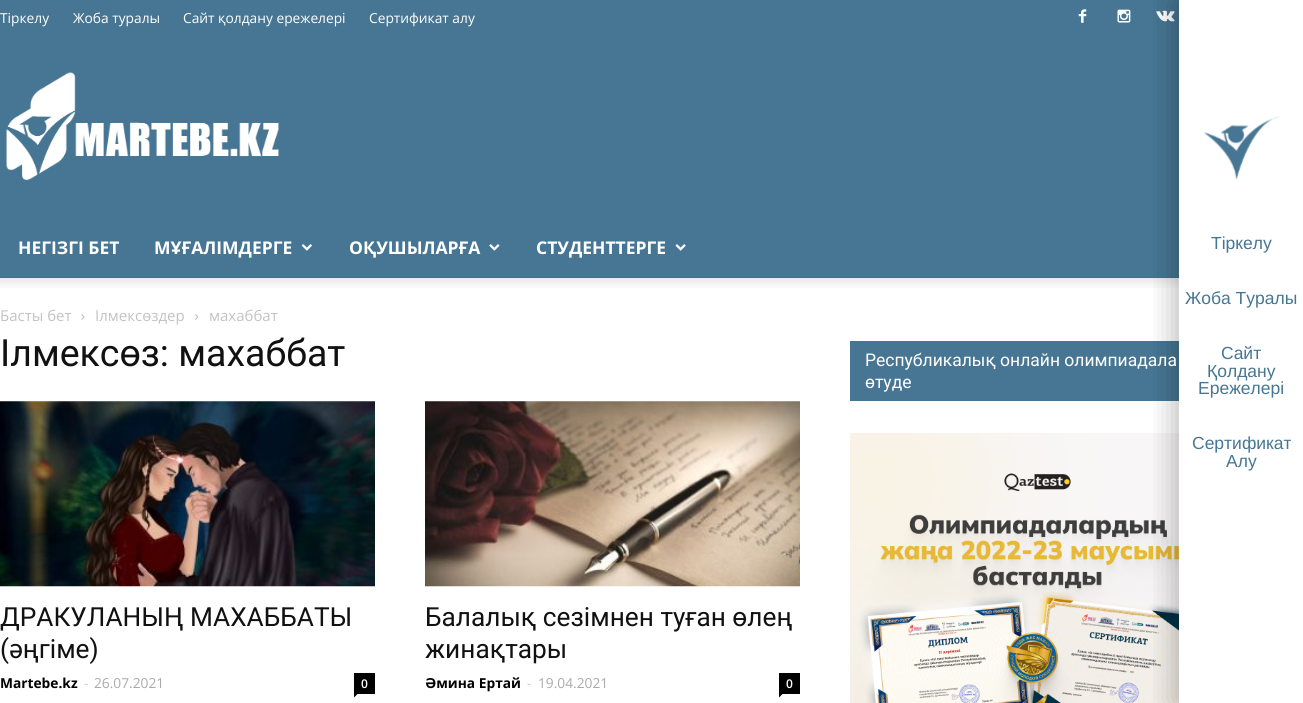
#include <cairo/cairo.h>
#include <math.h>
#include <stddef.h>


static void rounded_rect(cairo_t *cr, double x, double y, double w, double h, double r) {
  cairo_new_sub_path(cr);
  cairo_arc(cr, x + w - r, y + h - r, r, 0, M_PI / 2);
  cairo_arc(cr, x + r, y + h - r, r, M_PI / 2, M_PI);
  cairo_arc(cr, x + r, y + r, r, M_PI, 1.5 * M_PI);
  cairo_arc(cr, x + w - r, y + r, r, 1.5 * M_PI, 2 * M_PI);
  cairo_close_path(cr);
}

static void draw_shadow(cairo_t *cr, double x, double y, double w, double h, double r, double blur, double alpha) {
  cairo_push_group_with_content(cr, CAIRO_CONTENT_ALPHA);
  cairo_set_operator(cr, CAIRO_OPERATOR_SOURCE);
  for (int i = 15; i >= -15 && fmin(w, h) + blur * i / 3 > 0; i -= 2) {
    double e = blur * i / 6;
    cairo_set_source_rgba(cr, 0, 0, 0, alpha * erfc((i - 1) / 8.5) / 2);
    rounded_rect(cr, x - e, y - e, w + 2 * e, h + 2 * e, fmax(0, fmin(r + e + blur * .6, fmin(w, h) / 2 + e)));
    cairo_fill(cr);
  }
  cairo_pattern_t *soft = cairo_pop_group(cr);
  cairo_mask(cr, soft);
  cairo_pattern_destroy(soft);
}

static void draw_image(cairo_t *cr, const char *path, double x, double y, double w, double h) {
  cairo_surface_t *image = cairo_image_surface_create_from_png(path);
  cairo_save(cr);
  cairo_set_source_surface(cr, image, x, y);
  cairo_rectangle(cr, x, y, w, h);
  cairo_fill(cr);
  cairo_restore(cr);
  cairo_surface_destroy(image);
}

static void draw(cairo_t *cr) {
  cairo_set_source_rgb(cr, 1, 1, 1);
  cairo_paint(cr);
  cairo_set_source_rgb(cr, 70 / 255.0, 118 / 255.0, 147 / 255.0);
  cairo_rectangle(cr, 0, 0, 1179, 278);
  cairo_fill(cr);
  draw_image(cr, "images/1.png", 6, 72, 273, 108);
  draw_image(cr, "images/2.png", 1078, 9, 9, 14);
  draw_image(cr, "images/3.png", 1117, 9, 14, 14);
  draw_image(cr, "images/4.png", 1156, 10, 19, 12);
  draw_image(cr, "images/5.png", 301, 244, 11, 7);
  draw_image(cr, "images/6.png", 489, 244, 11, 7);
  draw_image(cr, "images/7.png", 675, 244, 11, 7);
  draw_image(cr, "images/8.png", 0, 277, 1179, 11);
  draw_image(cr, "images/9.png", 81, 314, 4, 6);
  draw_image(cr, "images/10.png", 195, 314, 4, 6);
  draw_image(cr, "images/11.png", 0, 401, 375, 186);
  cairo_set_source_rgb(cr, 0, 0, 0);
  cairo_rectangle(cr, 354, 673, 21, 21);
  cairo_fill(cr);
  cairo_new_path(cr);
  cairo_move_to(cr, 354, 694);
  cairo_line_to(cr, 357.5, 694);
  cairo_line_to(cr, 354, 697.5);
  cairo_close_path(cr);
  cairo_fill(cr);
  draw_image(cr, "images/12.png", 425, 401, 375, 186);
  cairo_rectangle(cr, 779, 673, 21, 21);
  cairo_fill(cr);
  cairo_new_path(cr);
  cairo_move_to(cr, 779, 694);
  cairo_line_to(cr, 782.5, 694);
  cairo_line_to(cr, 779, 697.5);
  cairo_close_path(cr);
  cairo_fill(cr);
  cairo_set_source_rgb(cr, 70 / 255.0, 118 / 255.0, 147 / 255.0);
  cairo_rectangle(cr, 850, 341, 329, 60);
  cairo_fill(cr);
  draw_image(cr, "images/13.png", 850, 433, 329, 270);
  cairo_save(cr);
  cairo_rectangle(cr, 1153, 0, 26, 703);
  cairo_clip(cr);
  cairo_set_source_rgb(cr, 0, 0, 0);
  draw_shadow(cr, 1173, 0, 125, 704, 0, 14, 0.25);
  cairo_restore(cr);
  draw_image(cr, "images/14.png", 1203, 116, 76, 64);
  cairo_select_font_face(cr, "Open Sans", CAIRO_FONT_SLANT_NORMAL, CAIRO_FONT_WEIGHT_NORMAL);
  cairo_set_font_size(cr, 13.75);
  cairo_set_source_rgb(cr, 1, 1, 1);
  cairo_move_to(cr, 0, 23);
  cairo_show_text(cr, "Тіркелу");
  cairo_move_to(cr, 73, 23);
  cairo_show_text(cr, "Жоба туралы");
  cairo_move_to(cr, 183, 23);
  cairo_show_text(cr, "Сайт қолдану ережелері");
  cairo_move_to(cr, 369, 23);
  cairo_show_text(cr, "Сертификат алу");
  cairo_select_font_face(cr, "Open Sans", CAIRO_FONT_SLANT_NORMAL, CAIRO_FONT_WEIGHT_BOLD);
  cairo_set_font_size(cr, 17.5);
  cairo_move_to(cr, 18, 254);
  cairo_show_text(cr, "НЕГІЗГІ БЕТ");
  cairo_move_to(cr, 154, 254);
  cairo_show_text(cr, "МҰҒАЛІМДЕРГЕ");
  cairo_move_to(cr, 349, 254);
  cairo_show_text(cr, "ОҚУШЫЛАРҒА");
  cairo_move_to(cr, 536, 254);
  cairo_show_text(cr, "СТУДЕНТТЕРГЕ");
  cairo_select_font_face(cr, "Open Sans", CAIRO_FONT_SLANT_NORMAL, CAIRO_FONT_WEIGHT_NORMAL);
  cairo_set_font_size(cr, 15);
  cairo_set_source_rgb(cr, 195 / 255.0, 195 / 255.0, 195 / 255.0);
  cairo_move_to(cr, 0, 321);
  cairo_show_text(cr, "Басты бет");
  cairo_move_to(cr, 95, 321);
  cairo_show_text(cr, "Ілмексөздер");
  cairo_move_to(cr, 209, 321);
  cairo_show_text(cr, "махаббат");
  cairo_select_font_face(cr, "Roboto", CAIRO_FONT_SLANT_NORMAL, CAIRO_FONT_WEIGHT_NORMAL);
  cairo_set_font_size(cr, 37.5);
  cairo_set_source_rgb(cr, 17 / 255.0, 17 / 255.0, 17 / 255.0);
  cairo_move_to(cr, 0, 366);
  cairo_show_text(cr, "Ілмексөз: махаббат");
  cairo_set_font_size(cr, 26.25);
  cairo_move_to(cr, 0, 626);
  cairo_show_text(cr, "ДРАКУЛАНЫҢ МАХАББАТЫ");
  cairo_move_to(cr, 0, 658);
  cairo_show_text(cr, "(әңгіме)");
  cairo_select_font_face(cr, "Open Sans", CAIRO_FONT_SLANT_NORMAL, CAIRO_FONT_WEIGHT_BOLD);
  cairo_set_font_size(cr, 13.75);
  cairo_set_source_rgb(cr, 0, 0, 0);
  cairo_move_to(cr, 0, 688);
  cairo_show_text(cr, "Martebe.kz");
  cairo_select_font_face(cr, "Open Sans", CAIRO_FONT_SLANT_NORMAL, CAIRO_FONT_WEIGHT_NORMAL);
  cairo_set_source_rgb(cr, 204 / 255.0, 204 / 255.0, 204 / 255.0);
  cairo_move_to(cr, 84, 688);
  cairo_show_text(cr, "-");
  cairo_set_source_rgb(cr, 170 / 255.0, 170 / 255.0, 170 / 255.0);
  cairo_move_to(cr, 94, 688);
  cairo_show_text(cr, "26.07.2021");
  cairo_select_font_face(cr, "Open Sans SemiBold", CAIRO_FONT_SLANT_NORMAL, CAIRO_FONT_WEIGHT_NORMAL);
  cairo_set_font_size(cr, 12);
  cairo_set_source_rgb(cr, 1, 1, 1);
  cairo_move_to(cr, 361, 688);
  cairo_show_text(cr, "0");
  cairo_select_font_face(cr, "Roboto", CAIRO_FONT_SLANT_NORMAL, CAIRO_FONT_WEIGHT_NORMAL);
  cairo_set_font_size(cr, 26.25);
  cairo_set_source_rgb(cr, 17 / 255.0, 17 / 255.0, 17 / 255.0);
  cairo_move_to(cr, 425, 626);
  cairo_show_text(cr, "Балалық сезімнен туған өлең");
  cairo_move_to(cr, 425, 658);
  cairo_show_text(cr, "жинақтары");
  cairo_select_font_face(cr, "Open Sans", CAIRO_FONT_SLANT_NORMAL, CAIRO_FONT_WEIGHT_BOLD);
  cairo_set_font_size(cr, 13.75);
  cairo_set_source_rgb(cr, 0, 0, 0);
  cairo_move_to(cr, 425, 688);
  cairo_show_text(cr, "Әмина Ертай");
  cairo_select_font_face(cr, "Open Sans", CAIRO_FONT_SLANT_NORMAL, CAIRO_FONT_WEIGHT_NORMAL);
  cairo_set_source_rgb(cr, 204 / 255.0, 204 / 255.0, 204 / 255.0);
  cairo_move_to(cr, 527, 688);
  cairo_show_text(cr, "-");
  cairo_set_source_rgb(cr, 170 / 255.0, 170 / 255.0, 170 / 255.0);
  cairo_move_to(cr, 538, 688);
  cairo_show_text(cr, "19.04.2021");
  cairo_select_font_face(cr, "Open Sans SemiBold", CAIRO_FONT_SLANT_NORMAL, CAIRO_FONT_WEIGHT_NORMAL);
  cairo_set_font_size(cr, 12);
  cairo_set_source_rgb(cr, 1, 1, 1);
  cairo_move_to(cr, 786, 688);
  cairo_show_text(cr, "0");
  cairo_select_font_face(cr, "Roboto", CAIRO_FONT_SLANT_NORMAL, CAIRO_FONT_WEIGHT_NORMAL);
  cairo_set_font_size(cr, 17.5);
  cairo_move_to(cr, 865, 366);
  cairo_show_text(cr, "Республикалық онлайн олимпиадала");
  cairo_move_to(cr, 865, 388);
  cairo_show_text(cr, "өтуде");
  cairo_select_font_face(cr, "Liberation Sans", CAIRO_FONT_SLANT_NORMAL, CAIRO_FONT_WEIGHT_NORMAL);
  cairo_set_source_rgb(cr, 70 / 255.0, 118 / 255.0, 147 / 255.0);
  cairo_move_to(cr, 1211, 249);
  cairo_show_text(cr, "Тіркелу");
  cairo_move_to(cr, 1185, 304);
  cairo_show_text(cr, "Жоба Туралы");
  cairo_move_to(cr, 1221, 359);
  cairo_show_text(cr, "Сайт");
  cairo_move_to(cr, 1207, 377);
  cairo_show_text(cr, "Қолдану");
  cairo_move_to(cr, 1198, 394);
  cairo_show_text(cr, "Ережелері");
  cairo_move_to(cr, 1192, 449);
  cairo_show_text(cr, "Сертификат");
  cairo_move_to(cr, 1226, 467);
  cairo_show_text(cr, "Алу");
}

int main(void) {
  cairo_surface_t *surface = cairo_image_surface_create(CAIRO_FORMAT_RGB24, 1303, 703);
  cairo_t *cr = cairo_create(surface);
  cairo_font_options_t *options = cairo_font_options_create();
  cairo_font_options_set_hint_metrics(options, CAIRO_HINT_METRICS_OFF);
  cairo_font_options_set_hint_style(options, CAIRO_HINT_STYLE_NONE);
  cairo_set_font_options(cr, options);
  cairo_set_miter_limit(cr, 4);
  draw(cr);
  cairo_surface_write_to_png(surface, "out.png");
  cairo_font_options_destroy(options);
  cairo_destroy(cr);
  cairo_surface_destroy(surface);
  return 0;
}
